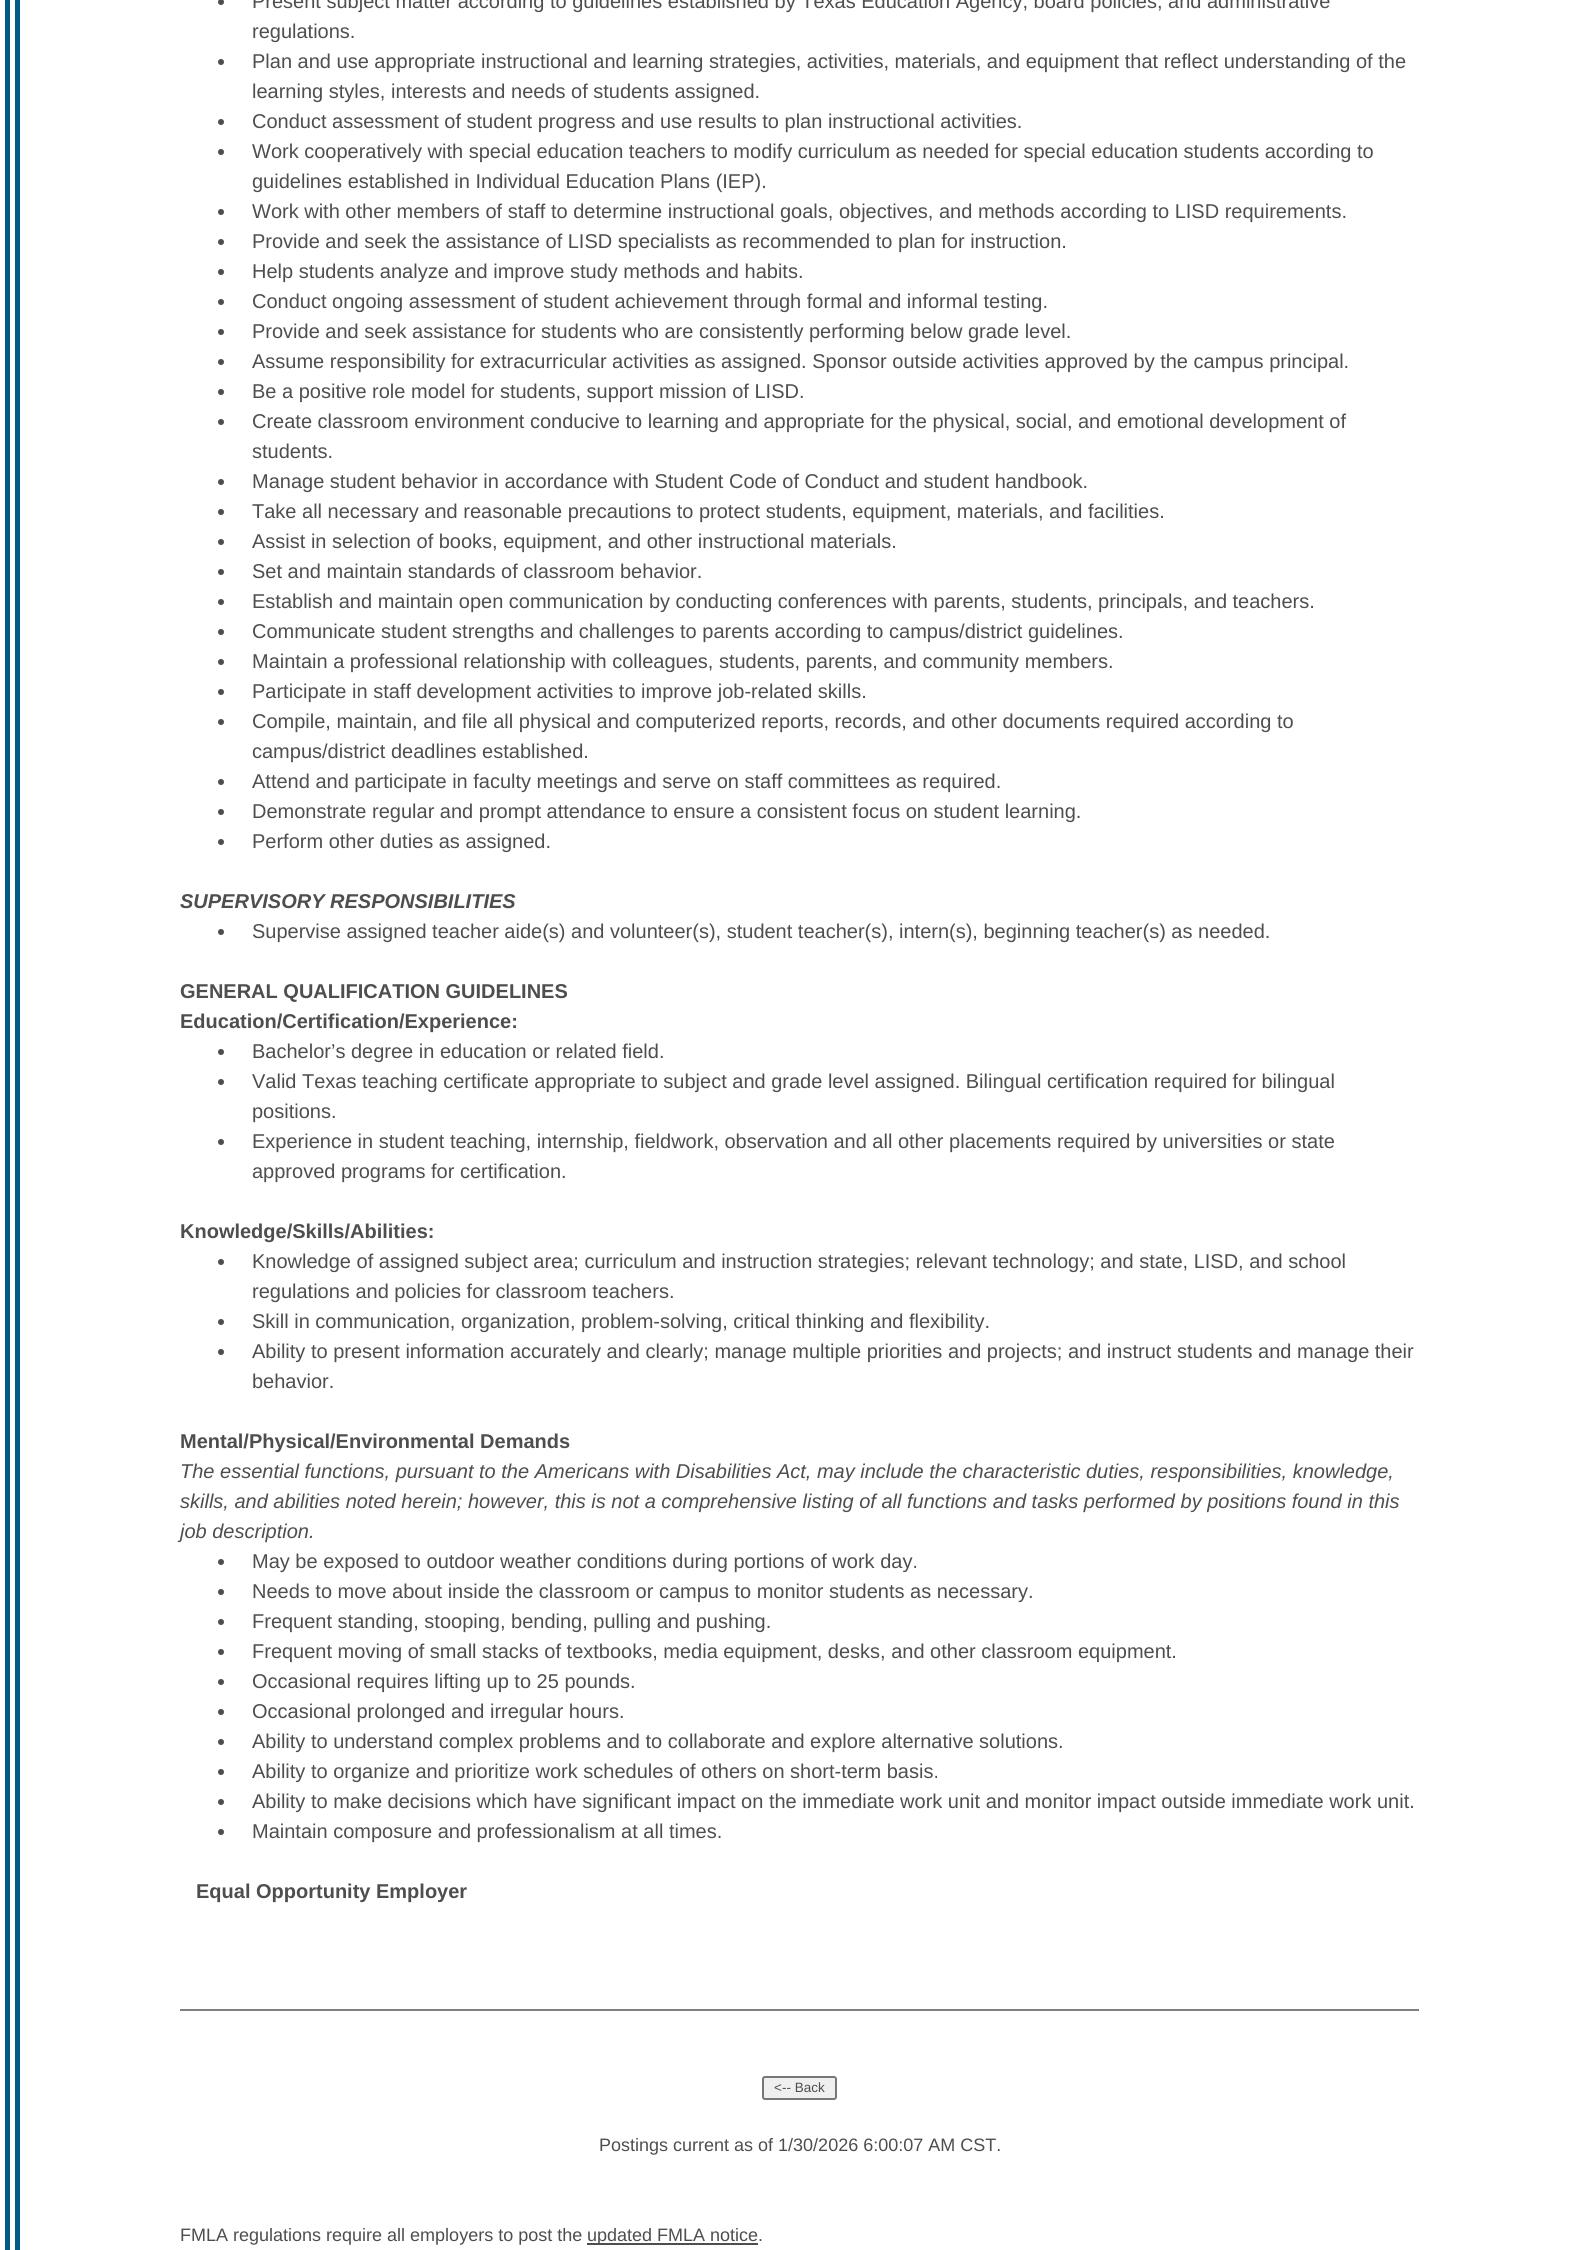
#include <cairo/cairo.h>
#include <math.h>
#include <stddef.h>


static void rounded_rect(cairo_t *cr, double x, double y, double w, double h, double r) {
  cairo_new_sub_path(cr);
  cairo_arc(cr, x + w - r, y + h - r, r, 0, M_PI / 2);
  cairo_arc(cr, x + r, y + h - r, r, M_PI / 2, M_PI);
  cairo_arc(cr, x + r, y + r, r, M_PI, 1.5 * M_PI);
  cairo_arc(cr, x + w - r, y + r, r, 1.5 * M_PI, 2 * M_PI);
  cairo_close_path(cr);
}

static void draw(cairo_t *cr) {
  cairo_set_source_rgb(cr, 1, 1, 1);
  cairo_paint(cr);
  cairo_set_source_rgb(cr, 1 / 255.0, 89 / 255.0, 135 / 255.0);
  cairo_rectangle(cr, 5, 0, 5, 2250);
  cairo_fill(cr);
  cairo_rectangle(cr, 15, 0, 5, 2250);
  cairo_fill(cr);
  cairo_set_source_rgb(cr, 78 / 255.0, 78 / 255.0, 78 / 255.0);
  cairo_arc(cr, 221, 2, 3, 0, 2 * M_PI);
  cairo_fill(cr);
  cairo_arc(cr, 221, 62, 3, 0, 2 * M_PI);
  cairo_fill(cr);
  cairo_arc(cr, 221, 122, 3, 0, 2 * M_PI);
  cairo_fill(cr);
  cairo_arc(cr, 221, 152, 3, 0, 2 * M_PI);
  cairo_fill(cr);
  cairo_arc(cr, 221, 212, 3, 0, 2 * M_PI);
  cairo_fill(cr);
  cairo_arc(cr, 221, 242, 3, 0, 2 * M_PI);
  cairo_fill(cr);
  cairo_arc(cr, 221, 272, 3, 0, 2 * M_PI);
  cairo_fill(cr);
  cairo_arc(cr, 221, 302, 3, 0, 2 * M_PI);
  cairo_fill(cr);
  cairo_arc(cr, 221, 332, 3, 0, 2 * M_PI);
  cairo_fill(cr);
  cairo_arc(cr, 221, 362, 3, 0, 2 * M_PI);
  cairo_fill(cr);
  cairo_arc(cr, 221, 392, 3, 0, 2 * M_PI);
  cairo_fill(cr);
  cairo_arc(cr, 221, 422, 3, 0, 2 * M_PI);
  cairo_fill(cr);
  cairo_arc(cr, 221, 482, 3, 0, 2 * M_PI);
  cairo_fill(cr);
  cairo_arc(cr, 221, 512, 3, 0, 2 * M_PI);
  cairo_fill(cr);
  cairo_arc(cr, 221, 542, 3, 0, 2 * M_PI);
  cairo_fill(cr);
  cairo_arc(cr, 221, 572, 3, 0, 2 * M_PI);
  cairo_fill(cr);
  cairo_arc(cr, 221, 602, 3, 0, 2 * M_PI);
  cairo_fill(cr);
  cairo_arc(cr, 221, 632, 3, 0, 2 * M_PI);
  cairo_fill(cr);
  cairo_arc(cr, 221, 662, 3, 0, 2 * M_PI);
  cairo_fill(cr);
  cairo_arc(cr, 221, 692, 3, 0, 2 * M_PI);
  cairo_fill(cr);
  cairo_arc(cr, 221, 722, 3, 0, 2 * M_PI);
  cairo_fill(cr);
  cairo_arc(cr, 221, 782, 3, 0, 2 * M_PI);
  cairo_fill(cr);
  cairo_arc(cr, 221, 812, 3, 0, 2 * M_PI);
  cairo_fill(cr);
  cairo_arc(cr, 221, 842, 3, 0, 2 * M_PI);
  cairo_fill(cr);
  cairo_arc(cr, 221, 932, 3, 0, 2 * M_PI);
  cairo_fill(cr);
  cairo_arc(cr, 221, 1052, 3, 0, 2 * M_PI);
  cairo_fill(cr);
  cairo_arc(cr, 221, 1082, 3, 0, 2 * M_PI);
  cairo_fill(cr);
  cairo_arc(cr, 221, 1142, 3, 0, 2 * M_PI);
  cairo_fill(cr);
  cairo_arc(cr, 221, 1262, 3, 0, 2 * M_PI);
  cairo_fill(cr);
  cairo_arc(cr, 221, 1322, 3, 0, 2 * M_PI);
  cairo_fill(cr);
  cairo_arc(cr, 221, 1352, 3, 0, 2 * M_PI);
  cairo_fill(cr);
  cairo_arc(cr, 221, 1562, 3, 0, 2 * M_PI);
  cairo_fill(cr);
  cairo_arc(cr, 221, 1592, 3, 0, 2 * M_PI);
  cairo_fill(cr);
  cairo_arc(cr, 221, 1622, 3, 0, 2 * M_PI);
  cairo_fill(cr);
  cairo_arc(cr, 221, 1652, 3, 0, 2 * M_PI);
  cairo_fill(cr);
  cairo_arc(cr, 221, 1682, 3, 0, 2 * M_PI);
  cairo_fill(cr);
  cairo_arc(cr, 221, 1712, 3, 0, 2 * M_PI);
  cairo_fill(cr);
  cairo_arc(cr, 221, 1742, 3, 0, 2 * M_PI);
  cairo_fill(cr);
  cairo_arc(cr, 221, 1772, 3, 0, 2 * M_PI);
  cairo_fill(cr);
  cairo_arc(cr, 221, 1802, 3, 0, 2 * M_PI);
  cairo_fill(cr);
  cairo_arc(cr, 221, 1832, 3, 0, 2 * M_PI);
  cairo_fill(cr);
  cairo_set_source_rgb(cr, 128 / 255.0, 128 / 255.0, 128 / 255.0);
  cairo_rectangle(cr, 180, 2009, 1239, 2);
  cairo_fill(cr);
  cairo_set_source_rgb(cr, 239 / 255.0, 239 / 255.0, 239 / 255.0);
  rounded_rect(cr, 763, 2077, 73, 22, 2);
  cairo_fill_preserve(cr);
  cairo_set_source_rgb(cr, 118 / 255.0, 118 / 255.0, 118 / 255.0);
  cairo_stroke(cr);
  cairo_set_source_rgb(cr, 78 / 255.0, 78 / 255.0, 78 / 255.0);
  cairo_rectangle(cr, 587, 2243, 171, 2);
  cairo_fill(cr);
  cairo_select_font_face(cr, "Liberation Sans", CAIRO_FONT_SLANT_NORMAL, CAIRO_FONT_WEIGHT_NORMAL);
  cairo_set_font_size(cr, 20);
  cairo_move_to(cr, 252, 8);
  cairo_show_text(cr, "Present subject matter according to guidelines established by Texas Education Agency, board policies, and administrative");
  cairo_move_to(cr, 252, 38);
  cairo_show_text(cr, "regulations.");
  cairo_move_to(cr, 252, 68);
  cairo_show_text(cr, "Plan and use appropriate instructional and learning strategies, activities, materials, and equipment that reflect understanding of the");
  cairo_move_to(cr, 252, 98);
  cairo_show_text(cr, "learning styles, interests and needs of students assigned.");
  cairo_move_to(cr, 252, 128);
  cairo_show_text(cr, "Conduct assessment of student progress and use results to plan instructional activities.");
  cairo_move_to(cr, 252, 158);
  cairo_show_text(cr, "Work cooperatively with special education teachers to modify curriculum as needed for special education students according to");
  cairo_move_to(cr, 252, 188);
  cairo_show_text(cr, "guidelines established in Individual Education Plans (IEP).");
  cairo_move_to(cr, 252, 218);
  cairo_show_text(cr, "Work with other members of staff to determine instructional goals, objectives, and methods according to LISD requirements.");
  cairo_move_to(cr, 252, 248);
  cairo_show_text(cr, "Provide and seek the assistance of LISD specialists as recommended to plan for instruction.");
  cairo_move_to(cr, 252, 278);
  cairo_show_text(cr, "Help students analyze and improve study methods and habits.");
  cairo_move_to(cr, 252, 308);
  cairo_show_text(cr, "Conduct ongoing assessment of student achievement through formal and informal testing.");
  cairo_move_to(cr, 252, 338);
  cairo_show_text(cr, "Provide and seek assistance for students who are consistently performing below grade level.");
  cairo_move_to(cr, 252, 368);
  cairo_show_text(cr, "Assume responsibility for extracurricular activities as assigned. Sponsor outside activities approved by the campus principal.");
  cairo_move_to(cr, 252, 398);
  cairo_show_text(cr, "Be a positive role model for students, support mission of LISD.");
  cairo_move_to(cr, 252, 428);
  cairo_show_text(cr, "Create classroom environment conducive to learning and appropriate for the physical, social, and emotional development of");
  cairo_move_to(cr, 252, 458);
  cairo_show_text(cr, "students.");
  cairo_move_to(cr, 252, 488);
  cairo_show_text(cr, "Manage student behavior in accordance with Student Code of Conduct and student handbook.");
  cairo_move_to(cr, 252, 518);
  cairo_show_text(cr, "Take all necessary and reasonable precautions to protect students, equipment, materials, and facilities.");
  cairo_move_to(cr, 252, 548);
  cairo_show_text(cr, "Assist in selection of books, equipment, and other instructional materials.");
  cairo_move_to(cr, 252, 578);
  cairo_show_text(cr, "Set and maintain standards of classroom behavior.");
  cairo_move_to(cr, 252, 608);
  cairo_show_text(cr, "Establish and maintain open communication by conducting conferences with parents, students, principals, and teachers.");
  cairo_move_to(cr, 252, 638);
  cairo_show_text(cr, "Communicate student strengths and challenges to parents according to campus/district guidelines.");
  cairo_move_to(cr, 252, 668);
  cairo_show_text(cr, "Maintain a professional relationship with colleagues, students, parents, and community members.");
  cairo_move_to(cr, 252, 698);
  cairo_show_text(cr, "Participate in staff development activities to improve job-related skills.");
  cairo_move_to(cr, 252, 728);
  cairo_show_text(cr, "Compile, maintain, and file all physical and computerized reports, records, and other documents required according to");
  cairo_move_to(cr, 252, 758);
  cairo_show_text(cr, "campus/district deadlines established.");
  cairo_move_to(cr, 252, 788);
  cairo_show_text(cr, "Attend and participate in faculty meetings and serve on staff committees as required.");
  cairo_move_to(cr, 252, 818);
  cairo_show_text(cr, "Demonstrate regular and prompt attendance to ensure a consistent focus on student learning.");
  cairo_move_to(cr, 252, 848);
  cairo_show_text(cr, "Perform other duties as assigned.");
  cairo_select_font_face(cr, "Liberation Sans", CAIRO_FONT_SLANT_ITALIC, CAIRO_FONT_WEIGHT_BOLD);
  cairo_move_to(cr, 180, 908);
  cairo_show_text(cr, "SUPERVISORY RESPONSIBILITIES");
  cairo_select_font_face(cr, "Liberation Sans", CAIRO_FONT_SLANT_NORMAL, CAIRO_FONT_WEIGHT_NORMAL);
  cairo_move_to(cr, 252, 938);
  cairo_show_text(cr, "Supervise assigned teacher aide(s) and volunteer(s), student teacher(s), intern(s), beginning teacher(s) as needed.");
  cairo_select_font_face(cr, "Liberation Sans", CAIRO_FONT_SLANT_NORMAL, CAIRO_FONT_WEIGHT_BOLD);
  cairo_move_to(cr, 180, 998);
  cairo_show_text(cr, "GENERAL QUALIFICATION GUIDELINES");
  cairo_move_to(cr, 180, 1028);
  cairo_show_text(cr, "Education/Certification/Experience:");
  cairo_select_font_face(cr, "Liberation Sans", CAIRO_FONT_SLANT_NORMAL, CAIRO_FONT_WEIGHT_NORMAL);
  cairo_move_to(cr, 252, 1058);
  cairo_show_text(cr, "Bachelor’s degree in education or related field.");
  cairo_move_to(cr, 252, 1088);
  cairo_show_text(cr, "Valid Texas teaching certificate appropriate to subject and grade level assigned. Bilingual certification required for bilingual");
  cairo_move_to(cr, 252, 1118);
  cairo_show_text(cr, "positions.");
  cairo_move_to(cr, 252, 1148);
  cairo_show_text(cr, "Experience in student teaching, internship, fieldwork, observation and all other placements required by universities or state");
  cairo_move_to(cr, 252, 1178);
  cairo_show_text(cr, "approved programs for certification.");
  cairo_select_font_face(cr, "Liberation Sans", CAIRO_FONT_SLANT_NORMAL, CAIRO_FONT_WEIGHT_BOLD);
  cairo_move_to(cr, 180, 1238);
  cairo_show_text(cr, "Knowledge/Skills/Abilities:");
  cairo_select_font_face(cr, "Liberation Sans", CAIRO_FONT_SLANT_NORMAL, CAIRO_FONT_WEIGHT_NORMAL);
  cairo_move_to(cr, 252, 1268);
  cairo_show_text(cr, "Knowledge of assigned subject area; curriculum and instruction strategies; relevant technology; and state, LISD, and school");
  cairo_move_to(cr, 252, 1298);
  cairo_show_text(cr, "regulations and policies for classroom teachers.");
  cairo_move_to(cr, 252, 1328);
  cairo_show_text(cr, "Skill in communication, organization, problem-solving, critical thinking and flexibility.");
  cairo_move_to(cr, 252, 1358);
  cairo_show_text(cr, "Ability to present information accurately and clearly; manage multiple priorities and projects; and instruct students and manage their");
  cairo_move_to(cr, 252, 1388);
  cairo_show_text(cr, "behavior.");
  cairo_select_font_face(cr, "Liberation Sans", CAIRO_FONT_SLANT_NORMAL, CAIRO_FONT_WEIGHT_BOLD);
  cairo_move_to(cr, 180, 1448);
  cairo_show_text(cr, "Mental/Physical/Environmental Demands");
  cairo_select_font_face(cr, "Liberation Sans", CAIRO_FONT_SLANT_ITALIC, CAIRO_FONT_WEIGHT_NORMAL);
  cairo_move_to(cr, 180, 1478);
  cairo_show_text(cr, "The essential functions, pursuant to the Americans with Disabilities Act, may include the characteristic duties, responsibilities, knowledge,");
  cairo_move_to(cr, 180, 1508);
  cairo_show_text(cr, "skills, and abilities noted herein; however, this is not a comprehensive listing of all functions and tasks performed by positions found in this");
  cairo_move_to(cr, 180, 1538);
  cairo_show_text(cr, "job description.");
  cairo_select_font_face(cr, "Liberation Sans", CAIRO_FONT_SLANT_NORMAL, CAIRO_FONT_WEIGHT_NORMAL);
  cairo_move_to(cr, 252, 1568);
  cairo_show_text(cr, "May be exposed to outdoor weather conditions during portions of work day.");
  cairo_move_to(cr, 252, 1598);
  cairo_show_text(cr, "Needs to move about inside the classroom or campus to monitor students as necessary.");
  cairo_move_to(cr, 252, 1628);
  cairo_show_text(cr, "Frequent standing, stooping, bending, pulling and pushing.");
  cairo_move_to(cr, 252, 1658);
  cairo_show_text(cr, "Frequent moving of small stacks of textbooks, media equipment, desks, and other classroom equipment.");
  cairo_move_to(cr, 252, 1688);
  cairo_show_text(cr, "Occasional requires lifting up to 25 pounds.");
  cairo_move_to(cr, 252, 1718);
  cairo_show_text(cr, "Occasional prolonged and irregular hours.");
  cairo_move_to(cr, 252, 1748);
  cairo_show_text(cr, "Ability to understand complex problems and to collaborate and explore alternative solutions.");
  cairo_move_to(cr, 252, 1778);
  cairo_show_text(cr, "Ability to organize and prioritize work schedules of others on short-term basis.");
  cairo_move_to(cr, 252, 1808);
  cairo_show_text(cr, "Ability to make decisions which have significant impact on the immediate work unit and monitor impact outside immediate work unit.");
  cairo_move_to(cr, 252, 1838);
  cairo_show_text(cr, "Maintain composure and professionalism at all times.");
  cairo_select_font_face(cr, "Liberation Sans", CAIRO_FONT_SLANT_NORMAL, CAIRO_FONT_WEIGHT_BOLD);
  cairo_move_to(cr, 196, 1898);
  cairo_show_text(cr, "Equal Opportunity Employer");
  cairo_select_font_face(cr, "Liberation Sans", CAIRO_FONT_SLANT_NORMAL, CAIRO_FONT_WEIGHT_NORMAL);
  cairo_set_font_size(cr, 13.5);
  cairo_move_to(cr, 774, 2092);
  cairo_show_text(cr, "<-- Back");
  cairo_set_font_size(cr, 18);
  cairo_move_to(cr, 599, 2151);
  cairo_show_text(cr, "Postings current as of 1/30/2026 6:00:07 AM CST.");
  cairo_move_to(cr, 180, 2241);
  cairo_show_text(cr, "FMLA regulations require all employers to post the");
  cairo_move_to(cr, 587, 2241);
  cairo_show_text(cr, "updated FMLA notice.");
}

int main(void) {
  cairo_surface_t *surface = cairo_image_surface_create(CAIRO_FORMAT_RGB24, 1577, 2250);
  cairo_t *cr = cairo_create(surface);
  cairo_font_options_t *options = cairo_font_options_create();
  cairo_font_options_set_hint_metrics(options, CAIRO_HINT_METRICS_OFF);
  cairo_font_options_set_hint_style(options, CAIRO_HINT_STYLE_NONE);
  cairo_set_font_options(cr, options);
  cairo_set_miter_limit(cr, 4);
  draw(cr);
  cairo_surface_write_to_png(surface, "out.png");
  cairo_font_options_destroy(options);
  cairo_destroy(cr);
  cairo_surface_destroy(surface);
  return 0;
}
